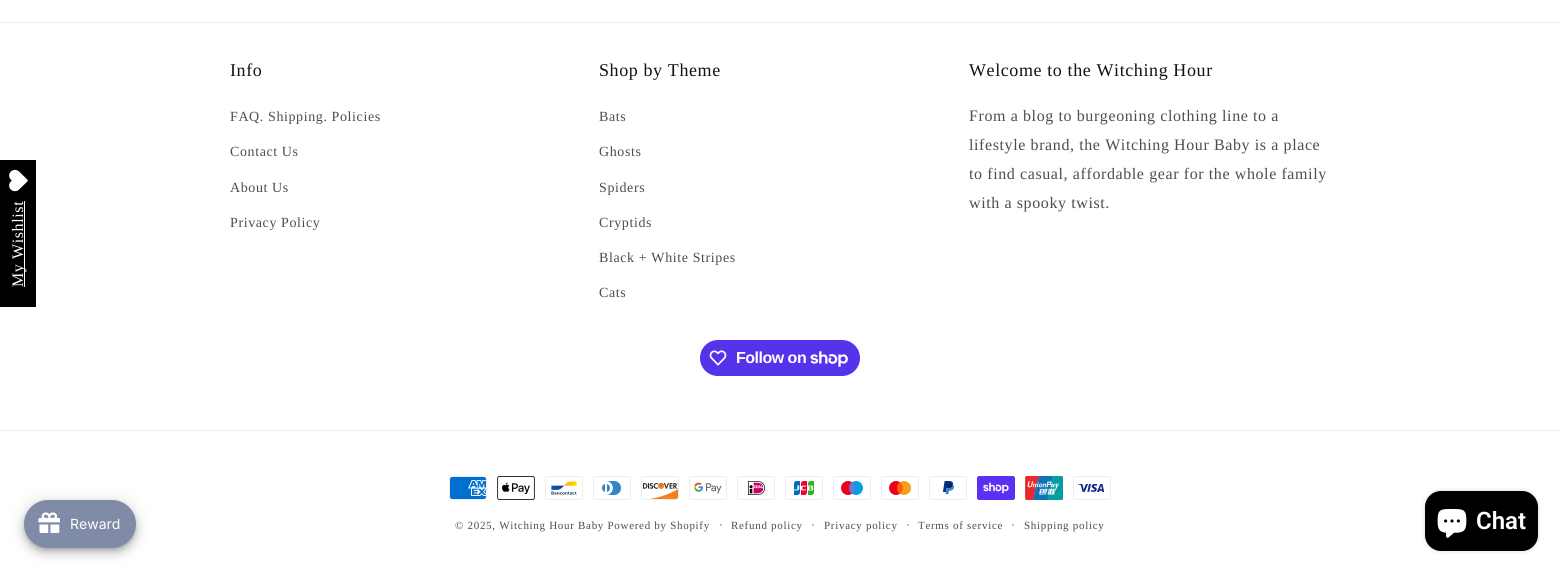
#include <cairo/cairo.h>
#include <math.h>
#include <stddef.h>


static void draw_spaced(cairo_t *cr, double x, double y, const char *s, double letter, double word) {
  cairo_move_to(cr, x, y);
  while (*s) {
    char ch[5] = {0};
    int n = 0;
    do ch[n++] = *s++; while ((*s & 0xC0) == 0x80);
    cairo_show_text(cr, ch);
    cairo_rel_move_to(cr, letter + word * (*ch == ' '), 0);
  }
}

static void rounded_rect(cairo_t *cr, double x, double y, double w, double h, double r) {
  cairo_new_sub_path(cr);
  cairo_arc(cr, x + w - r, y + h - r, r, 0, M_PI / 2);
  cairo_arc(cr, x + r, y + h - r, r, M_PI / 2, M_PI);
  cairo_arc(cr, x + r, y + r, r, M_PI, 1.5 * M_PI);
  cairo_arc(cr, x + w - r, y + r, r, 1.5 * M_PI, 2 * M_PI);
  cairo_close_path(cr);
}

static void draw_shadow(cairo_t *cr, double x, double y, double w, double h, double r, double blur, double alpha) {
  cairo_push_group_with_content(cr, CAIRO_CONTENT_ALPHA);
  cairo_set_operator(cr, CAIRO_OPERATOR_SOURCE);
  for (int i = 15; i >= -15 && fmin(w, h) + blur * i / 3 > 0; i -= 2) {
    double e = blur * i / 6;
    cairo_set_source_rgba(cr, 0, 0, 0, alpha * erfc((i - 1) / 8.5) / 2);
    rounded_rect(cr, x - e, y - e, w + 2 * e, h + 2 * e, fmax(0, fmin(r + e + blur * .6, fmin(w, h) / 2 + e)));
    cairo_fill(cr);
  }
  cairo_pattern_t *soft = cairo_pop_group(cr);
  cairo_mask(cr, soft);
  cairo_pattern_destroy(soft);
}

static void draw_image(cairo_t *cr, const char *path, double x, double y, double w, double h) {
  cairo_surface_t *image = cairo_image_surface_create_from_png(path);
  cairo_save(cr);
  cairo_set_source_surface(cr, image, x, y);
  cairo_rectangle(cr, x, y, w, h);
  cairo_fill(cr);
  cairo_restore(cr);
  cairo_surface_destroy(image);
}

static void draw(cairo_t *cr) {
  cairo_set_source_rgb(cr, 1, 1, 1);
  cairo_paint(cr);
  cairo_set_source_rgb(cr, 0, 0, 0);
  cairo_rectangle(cr, 0, 160, 36, 147);
  cairo_fill(cr);
  draw_image(cr, "images/1.png", 9, 169, 19, 23);
  cairo_set_source_rgb(cr, 1, 1, 1);
  cairo_rectangle(cr, 24, 201, 1, 86);
  cairo_fill(cr);
  cairo_set_source_rgb(cr, 236 / 255.0, 236 / 255.0, 236 / 255.0);
  cairo_rectangle(cr, 0, 22, 1560, 1);
  cairo_fill(cr);
  cairo_set_source_rgb(cr, 84 / 255.0, 51 / 255.0, 235 / 255.0);
  rounded_rect(cr, 700, 340, 160, 36, 18);
  cairo_fill(cr);
  draw_image(cr, "images/2.png", 709, 350, 18, 16);
  draw_image(cr, "images/3.png", 810, 351, 38, 16);
  cairo_set_source_rgb(cr, 236 / 255.0, 236 / 255.0, 236 / 255.0);
  cairo_rectangle(cr, 0, 430, 1560, 1);
  cairo_fill(cr);
  draw_image(cr, "images/4.png", 449, 476, 38, 24);
  draw_image(cr, "images/5.png", 497, 476, 38, 24);
  draw_image(cr, "images/6.png", 545, 476, 38, 24);
  draw_image(cr, "images/7.png", 593, 476, 38, 24);
  draw_image(cr, "images/8.png", 641, 476, 38, 24);
  draw_image(cr, "images/9.png", 689, 476, 38, 24);
  draw_image(cr, "images/10.png", 737, 476, 38, 24);
  draw_image(cr, "images/11.png", 785, 476, 38, 24);
  draw_image(cr, "images/12.png", 833, 476, 38, 24);
  draw_image(cr, "images/13.png", 881, 476, 38, 24);
  draw_image(cr, "images/14.png", 929, 476, 38, 24);
  draw_image(cr, "images/15.png", 977, 476, 38, 24);
  draw_image(cr, "images/16.png", 1025, 476, 38, 24);
  draw_image(cr, "images/17.png", 1073, 476, 38, 24);
  cairo_set_source_rgb(cr, 0, 0, 0);
  draw_shadow(cr, 24, 501, 112, 48, 24, 9, 0.12);
  draw_shadow(cr, 24, 506, 112, 48, 24, 5, 0.14);
  draw_shadow(cr, 25, 504, 110, 46, 23, 2.5, 0.2);
  cairo_set_source_rgb(cr, 128 / 255.0, 139 / 255.0, 167 / 255.0);
  rounded_rect(cr, 24, 500, 112, 48, 24);
  cairo_fill(cr);
  draw_image(cr, "images/18.png", 38, 512, 22, 21);
  cairo_set_source_rgb(cr, 0, 0, 0);
  draw_shadow(cr, 1425, 491, 113, 60, 16, 2.5, 0.15);
  cairo_set_source_rgb(cr, 0, 0, 0);
  rounded_rect(cr, 1425, 491, 113, 60, 16);
  cairo_fill(cr);
  draw_image(cr, "images/19.png", 1437, 509, 30, 29);
  cairo_select_font_face(cr, "Liberation Serif", CAIRO_FONT_SLANT_NORMAL, CAIRO_FONT_WEIGHT_NORMAL);
  cairo_set_font_size(cr, 16);
  cairo_set_source_rgb(cr, 1, 1, 1);
  cairo_save(cr);
  cairo_translate(cr, 23, 287);
  cairo_rotate(cr, -90 * M_PI / 180);
  draw_spaced(cr, 0, 0, "My Wishlist", 0.6, 0);
  cairo_restore(cr);
  cairo_set_font_size(cr, 18);
  cairo_set_source_rgb(cr, 18 / 255.0, 18 / 255.0, 18 / 255.0);
  draw_spaced(cr, 230, 76, "Info", 0.6, 0);
  cairo_set_font_size(cr, 14);
  cairo_set_source_rgb(cr, 77 / 255.0, 77 / 255.0, 77 / 255.0);
  draw_spaced(cr, 230, 121, "FAQ. Shipping. Policies", 0.6, 0);
  draw_spaced(cr, 230, 156, "Contact Us", 0.6, 0);
  draw_spaced(cr, 230, 192, "About Us", 0.6, 0);
  draw_spaced(cr, 230, 227, "Privacy Policy", 0.6, 0);
  cairo_set_font_size(cr, 18);
  cairo_set_source_rgb(cr, 18 / 255.0, 18 / 255.0, 18 / 255.0);
  draw_spaced(cr, 599, 76, "Shop by Theme", 0.6, 0);
  cairo_set_font_size(cr, 14);
  cairo_set_source_rgb(cr, 77 / 255.0, 77 / 255.0, 77 / 255.0);
  draw_spaced(cr, 599, 121, "Bats", 0.6, 0);
  draw_spaced(cr, 599, 156, "Ghosts", 0.6, 0);
  draw_spaced(cr, 599, 192, "Spiders", 0.6, 0);
  draw_spaced(cr, 599, 227, "Cryptids", 0.6, 0);
  draw_spaced(cr, 599, 262, "Black + White Stripes", 0.6, 0);
  draw_spaced(cr, 599, 297, "Cats", 0.6, 0);
  cairo_set_font_size(cr, 18);
  cairo_set_source_rgb(cr, 18 / 255.0, 18 / 255.0, 18 / 255.0);
  draw_spaced(cr, 969, 76, "Welcome to the Witching Hour", 0.6, 0);
  cairo_set_font_size(cr, 16);
  cairo_set_source_rgb(cr, 77 / 255.0, 77 / 255.0, 77 / 255.0);
  draw_spaced(cr, 969, 121, "From a blog to burgeoning clothing line to a", 0.6, 0);
  draw_spaced(cr, 969, 150, "lifestyle brand, the Witching Hour Baby is a place", 0.6, 0);
  draw_spaced(cr, 969, 179, "to find casual, affordable gear for the whole family", 0.6, 0);
  draw_spaced(cr, 969, 208, "with a spooky twist.", 0.6, 0);
  cairo_select_font_face(cr, "Liberation Sans", CAIRO_FONT_SLANT_NORMAL, CAIRO_FONT_WEIGHT_BOLD);
  cairo_set_source_rgb(cr, 1, 1, 1);
  draw_spaced(cr, 736, 363, "Follow on", -0.5, 0);
  cairo_select_font_face(cr, "Liberation Serif", CAIRO_FONT_SLANT_NORMAL, CAIRO_FONT_WEIGHT_NORMAL);
  cairo_set_font_size(cr, 11);
  cairo_set_source_rgb(cr, 77 / 255.0, 77 / 255.0, 77 / 255.0);
  draw_spaced(cr, 455, 529, "© 2025, Witching Hour Baby Powered by Shopify", 0.7, 0);
  cairo_set_font_size(cr, 12);
  draw_spaced(cr, 719, 529, "·", 0.7, 0);
  cairo_set_font_size(cr, 11);
  draw_spaced(cr, 731, 529, "Refund policy", 0.7, 0);
  cairo_set_font_size(cr, 12);
  draw_spaced(cr, 811, 529, "·", 0.7, 0);
  cairo_set_font_size(cr, 11);
  draw_spaced(cr, 824, 529, "Privacy policy", 0.7, 0);
  cairo_set_font_size(cr, 12);
  draw_spaced(cr, 906, 529, "·", 0.7, 0);
  cairo_set_font_size(cr, 11);
  draw_spaced(cr, 918, 529, "Terms of service", 0.7, 0);
  cairo_set_font_size(cr, 12);
  draw_spaced(cr, 1011, 529, "·", 0.7, 0);
  cairo_set_font_size(cr, 11);
  draw_spaced(cr, 1024, 529, "Shipping policy", 0.7, 0);
  cairo_select_font_face(cr, "Inter", CAIRO_FONT_SLANT_NORMAL, CAIRO_FONT_WEIGHT_NORMAL);
  cairo_set_font_size(cr, 14);
  cairo_set_source_rgb(cr, 1, 1, 1);
  cairo_move_to(cr, 70, 529);
  cairo_show_text(cr, "Reward");
  cairo_select_font_face(cr, "Roboto SemiBold", CAIRO_FONT_SLANT_NORMAL, CAIRO_FONT_WEIGHT_NORMAL);
  cairo_set_font_size(cr, 24);
  cairo_move_to(cr, 1476, 529);
  cairo_show_text(cr, "Chat");
}

int main(void) {
  cairo_surface_t *surface = cairo_image_surface_create(CAIRO_FORMAT_RGB24, 1560, 572);
  cairo_t *cr = cairo_create(surface);
  cairo_font_options_t *options = cairo_font_options_create();
  cairo_font_options_set_hint_metrics(options, CAIRO_HINT_METRICS_OFF);
  cairo_font_options_set_hint_style(options, CAIRO_HINT_STYLE_NONE);
  cairo_set_font_options(cr, options);
  cairo_set_miter_limit(cr, 4);
  draw(cr);
  cairo_surface_write_to_png(surface, "out.png");
  cairo_font_options_destroy(options);
  cairo_destroy(cr);
  cairo_surface_destroy(surface);
  return 0;
}
